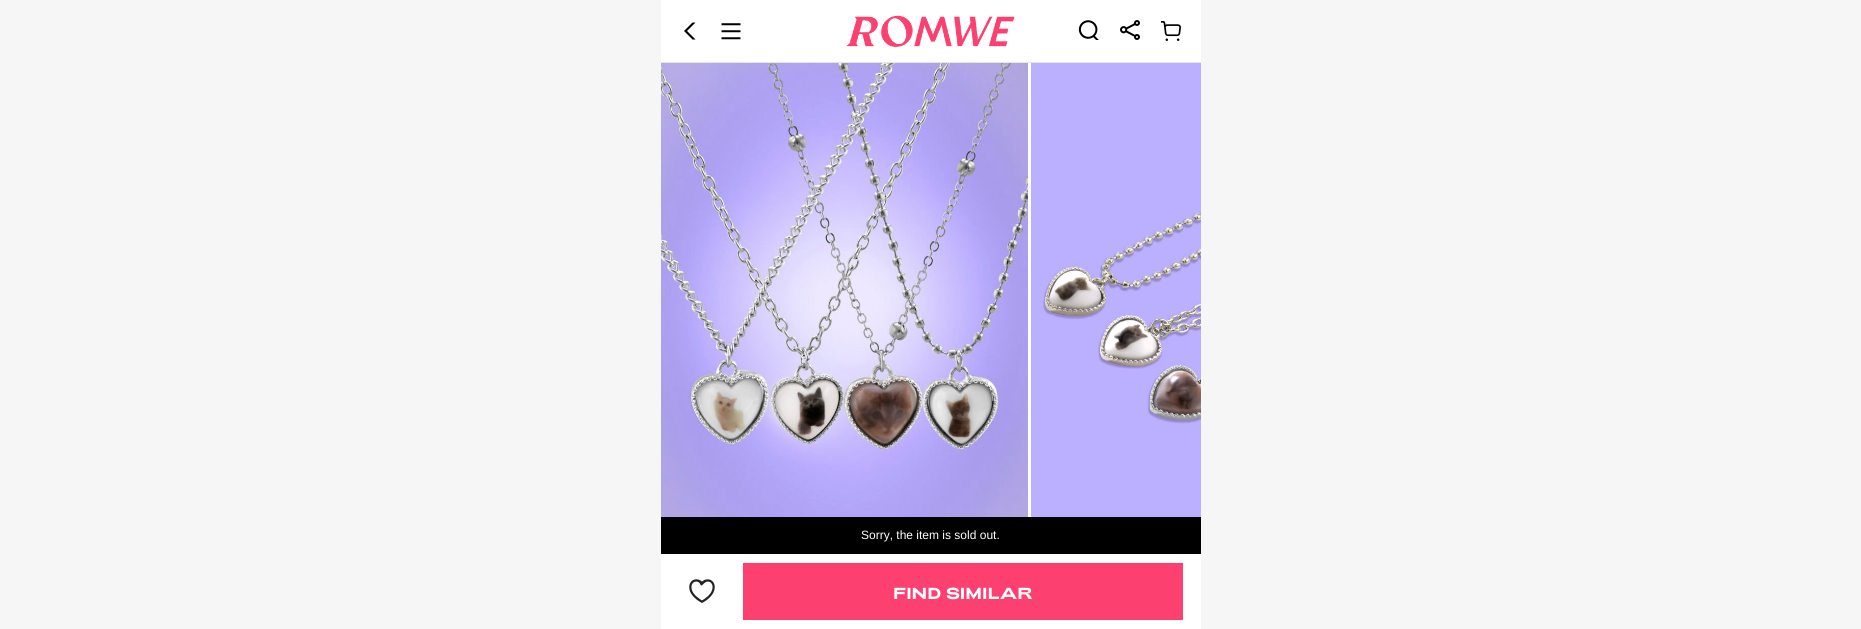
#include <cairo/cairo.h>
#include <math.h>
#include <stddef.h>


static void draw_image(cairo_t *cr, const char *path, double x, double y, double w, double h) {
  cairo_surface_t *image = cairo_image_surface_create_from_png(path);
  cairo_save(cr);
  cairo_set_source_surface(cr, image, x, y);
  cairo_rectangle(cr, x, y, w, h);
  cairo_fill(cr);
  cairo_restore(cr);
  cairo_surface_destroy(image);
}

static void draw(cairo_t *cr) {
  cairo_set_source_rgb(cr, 246 / 255.0, 246 / 255.0, 246 / 255.0);
  cairo_paint(cr);
  cairo_set_source_rgb(cr, 1, 1, 1);
  cairo_rectangle(cr, 661, 0, 540, 62);
  cairo_fill(cr);
  cairo_set_source_rgb(cr, 229 / 255.0, 229 / 255.0, 229 / 255.0);
  cairo_rectangle(cr, 661, 62, 540, 1);
  cairo_fill(cr);
  cairo_set_source_rgb(cr, 0, 0, 0);
  cairo_new_path(cr);
  cairo_move_to(cr, 695.5, 22.5);
  cairo_line_to(cr, 687, 31);
  cairo_line_to(cr, 695.5, 39.5);
  cairo_line_to(cr, 692.5, 39.5);
  cairo_line_to(cr, 684, 31);
  cairo_line_to(cr, 692.5, 22.5);
  cairo_close_path(cr);
  cairo_fill(cr);
  draw_image(cr, "images/1.png", 721, 23, 20, 17);
  draw_image(cr, "images/2.png", 846, 15, 169, 32);
  draw_image(cr, "images/3.png", 1078, 20, 21, 20);
  draw_image(cr, "images/4.png", 1120, 20, 20, 20);
  draw_image(cr, "images/5.png", 1161, 21, 20, 20);
  cairo_set_source_rgb(cr, 1, 1, 1);
  cairo_rectangle(cr, 1028, 63, 3, 454);
  cairo_fill(cr);
  draw_image(cr, "images/6.png", 661, 63, 367, 454);
  draw_image(cr, "images/7.png", 1031, 63, 170, 454);
  cairo_rectangle(cr, 661, 554, 540, 75);
  cairo_fill(cr);
  cairo_set_source_rgb(cr, 0, 0, 0);
  cairo_rectangle(cr, 661, 517, 540, 37);
  cairo_fill(cr);
  draw_image(cr, "images/8.png", 689, 579, 26, 24);
  cairo_set_source_rgb(cr, 252 / 255.0, 64 / 255.0, 112 / 255.0);
  cairo_rectangle(cr, 743, 563, 440, 57);
  cairo_fill(cr);
  cairo_select_font_face(cr, "Liberation Sans", CAIRO_FONT_SLANT_NORMAL, CAIRO_FONT_WEIGHT_NORMAL);
  cairo_set_font_size(cr, 12);
  cairo_set_source_rgb(cr, 1, 1, 1);
  cairo_move_to(cr, 861, 539);
  cairo_show_text(cr, "Sorry, the item is sold out.");
  cairo_select_font_face(cr, "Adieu", CAIRO_FONT_SLANT_NORMAL, CAIRO_FONT_WEIGHT_BOLD);
  cairo_set_font_size(cr, 16);
  cairo_move_to(cr, 893, 599);
  cairo_show_text(cr, "FIND SIMILAR");
}

int main(void) {
  cairo_surface_t *surface = cairo_image_surface_create(CAIRO_FORMAT_RGB24, 1861, 629);
  cairo_t *cr = cairo_create(surface);
  cairo_font_options_t *options = cairo_font_options_create();
  cairo_font_options_set_hint_metrics(options, CAIRO_HINT_METRICS_OFF);
  cairo_font_options_set_hint_style(options, CAIRO_HINT_STYLE_NONE);
  cairo_set_font_options(cr, options);
  cairo_set_miter_limit(cr, 4);
  draw(cr);
  cairo_surface_write_to_png(surface, "out.png");
  cairo_font_options_destroy(options);
  cairo_destroy(cr);
  cairo_surface_destroy(surface);
  return 0;
}
